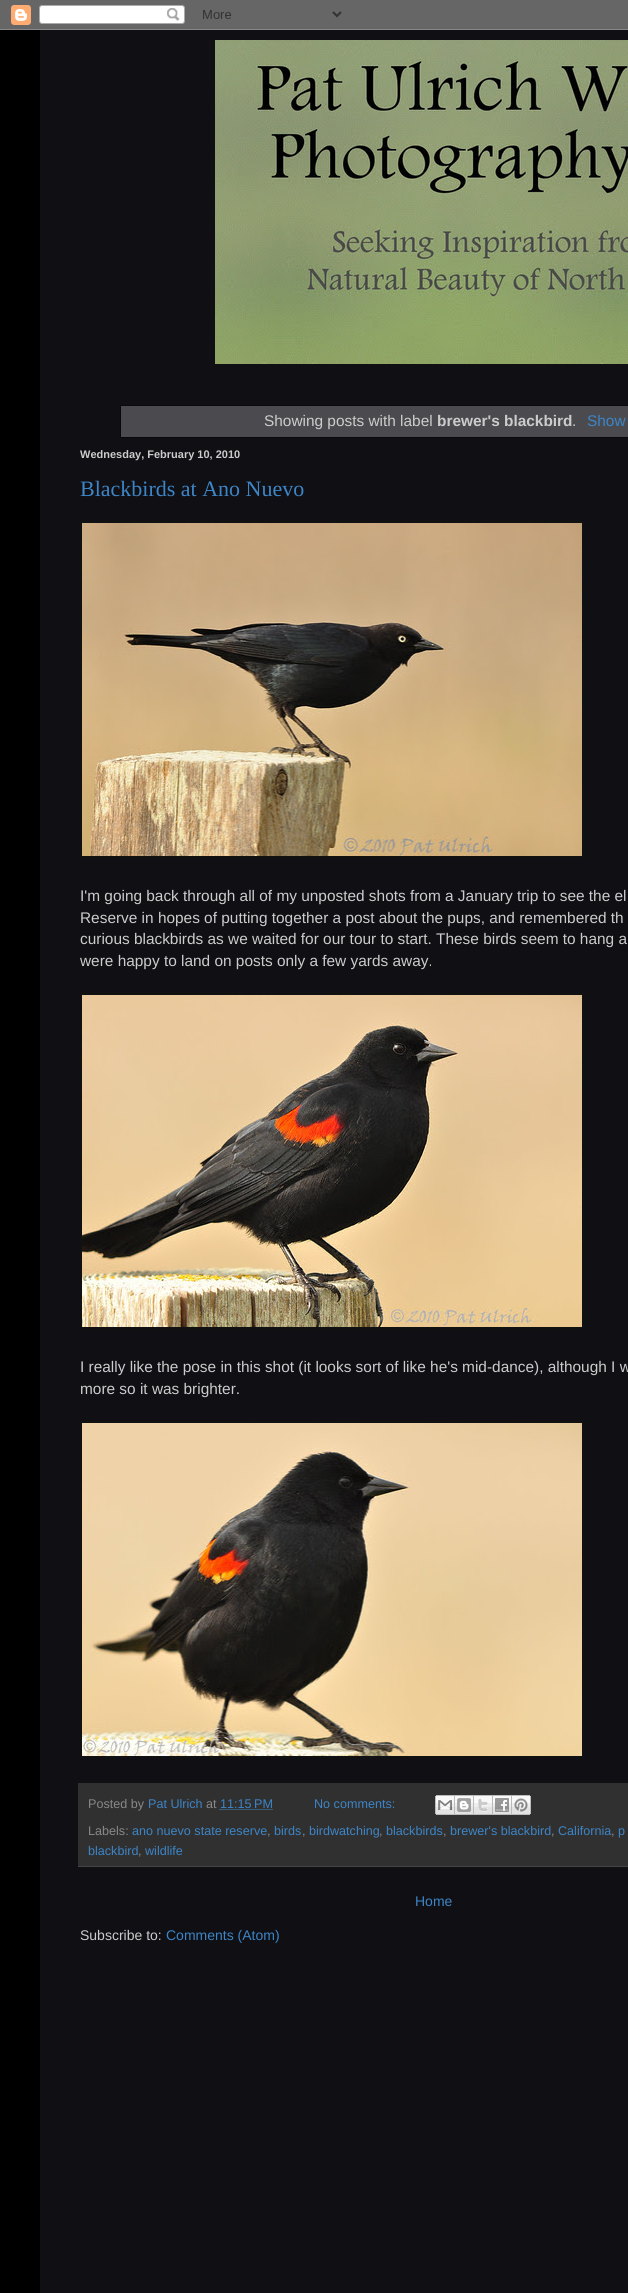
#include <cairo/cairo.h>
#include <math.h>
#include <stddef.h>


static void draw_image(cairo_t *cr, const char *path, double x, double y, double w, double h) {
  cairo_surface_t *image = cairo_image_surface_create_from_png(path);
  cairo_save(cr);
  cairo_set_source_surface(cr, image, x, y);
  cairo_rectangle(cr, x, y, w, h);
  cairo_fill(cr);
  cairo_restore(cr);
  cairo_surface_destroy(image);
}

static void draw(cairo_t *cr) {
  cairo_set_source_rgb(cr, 0, 0, 0);
  cairo_paint(cr);
  draw_image(cr, "images/1.png", 0, 0, 628, 30);
  cairo_set_source_rgb(cr, 15 / 255.0, 15 / 255.0, 20 / 255.0);
  cairo_rectangle(cr, 40, 30, 588, 2263);
  cairo_fill(cr);
  draw_image(cr, "images/2.png", 215, 40, 413, 324);
  cairo_rectangle(cr, 120.5, 405.5, 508, 32);
  cairo_set_source_rgb(cr, 9 / 255.0, 9 / 255.0, 12 / 255.0);
  cairo_set_line_width(cr, 1);
  cairo_stroke(cr);
  cairo_set_source_rgb(cr, 75 / 255.0, 75 / 255.0, 79 / 255.0);
  cairo_rectangle(cr, 121, 406, 507, 31);
  cairo_fill(cr);
  cairo_set_source_rgb(cr, 17 / 255.0, 17 / 255.0, 17 / 255.0);
  cairo_rectangle(cr, 80, 521, 504, 337);
  cairo_fill(cr);
  draw_image(cr, "images/3.png", 82, 523, 500, 333);
  cairo_rectangle(cr, 80, 993, 504, 336);
  cairo_fill(cr);
  draw_image(cr, "images/4.png", 82, 995, 500, 332);
  cairo_rectangle(cr, 80, 1421, 504, 337);
  cairo_fill(cr);
  draw_image(cr, "images/5.png", 82, 1423, 500, 333);
  cairo_set_source_rgb(cr, 48 / 255.0, 48 / 255.0, 48 / 255.0);
  cairo_rectangle(cr, 78, 1783, 550, 83);
  cairo_fill(cr);
  cairo_set_source_rgb(cr, 68 / 255.0, 68 / 255.0, 68 / 255.0);
  cairo_rectangle(cr, 78, 1866, 550, 1);
  cairo_fill(cr);
  cairo_new_path(cr);
  cairo_move_to(cr, 219.5, 1809.5);
  cairo_line_to(cr, 272.5, 1809.5);
  cairo_set_source_rgb(cr, 61 / 255.0, 133 / 255.0, 198 / 255.0);
  cairo_set_dash(cr, (double[]){1, 1}, 2, 0);
  cairo_stroke(cr);
  draw_image(cr, "images/6.png", 435, 1795, 20, 20);
  draw_image(cr, "images/7.png", 455, 1795, 19, 20);
  draw_image(cr, "images/8.png", 474, 1795, 19, 20);
  draw_image(cr, "images/9.png", 493, 1795, 19, 20);
  draw_image(cr, "images/10.png", 512, 1795, 19, 20);
  cairo_select_font_face(cr, "Liberation Sans", CAIRO_FONT_SLANT_NORMAL, CAIRO_FONT_WEIGHT_NORMAL);
  cairo_set_font_size(cr, 15.4);
  cairo_set_source_rgb(cr, 204 / 255.0, 204 / 255.0, 204 / 255.0);
  cairo_move_to(cr, 264, 426);
  cairo_show_text(cr, "Showing posts with label");
  cairo_select_font_face(cr, "Liberation Sans", CAIRO_FONT_SLANT_NORMAL, CAIRO_FONT_WEIGHT_BOLD);
  cairo_move_to(cr, 437, 426);
  cairo_show_text(cr, "brewer's blackbird");
  cairo_select_font_face(cr, "Liberation Sans", CAIRO_FONT_SLANT_NORMAL, CAIRO_FONT_WEIGHT_NORMAL);
  cairo_move_to(cr, 572, 426);
  cairo_show_text(cr, ".");
  cairo_set_source_rgb(cr, 61 / 255.0, 133 / 255.0, 198 / 255.0);
  cairo_move_to(cr, 587, 426);
  cairo_show_text(cr, "Show");
  cairo_select_font_face(cr, "Liberation Sans", CAIRO_FONT_SLANT_NORMAL, CAIRO_FONT_WEIGHT_BOLD);
  cairo_set_font_size(cr, 11);
  cairo_set_source_rgb(cr, 204 / 255.0, 204 / 255.0, 204 / 255.0);
  cairo_move_to(cr, 80, 458);
  cairo_show_text(cr, "Wednesday, February 10, 2010");
  cairo_select_font_face(cr, "Liberation Serif", CAIRO_FONT_SLANT_NORMAL, CAIRO_FONT_WEIGHT_NORMAL);
  cairo_set_font_size(cr, 22);
  cairo_set_source_rgb(cr, 61 / 255.0, 133 / 255.0, 198 / 255.0);
  cairo_move_to(cr, 80, 496);
  cairo_show_text(cr, "Blackbirds at Ano Nuevo");
  cairo_select_font_face(cr, "Liberation Sans", CAIRO_FONT_SLANT_NORMAL, CAIRO_FONT_WEIGHT_NORMAL);
  cairo_set_font_size(cr, 15.4);
  cairo_set_source_rgb(cr, 204 / 255.0, 204 / 255.0, 204 / 255.0);
  cairo_move_to(cr, 80, 901);
  cairo_show_text(cr, "I'm going back through all of my unposted shots from a January trip to see the el");
  cairo_move_to(cr, 80, 923);
  cairo_show_text(cr, "Reserve in hopes of putting together a post about the pups, and remembered th");
  cairo_move_to(cr, 80, 944);
  cairo_show_text(cr, "curious blackbirds as we waited for our tour to start. These birds seem to hang a");
  cairo_move_to(cr, 80, 966);
  cairo_show_text(cr, "were happy to land on posts only a few yards away.");
  cairo_move_to(cr, 80, 1372);
  cairo_show_text(cr, "I really like the pose in this shot (it looks sort of like he's mid-dance), although I w");
  cairo_move_to(cr, 80, 1394);
  cairo_show_text(cr, "more so it was brighter.");
  cairo_set_font_size(cr, 12.6);
  cairo_set_source_rgb(cr, 136 / 255.0, 136 / 255.0, 136 / 255.0);
  cairo_move_to(cr, 88, 1808);
  cairo_show_text(cr, "Posted by");
  cairo_set_source_rgb(cr, 61 / 255.0, 133 / 255.0, 198 / 255.0);
  cairo_move_to(cr, 148, 1808);
  cairo_show_text(cr, "Pat Ulrich");
  cairo_set_source_rgb(cr, 136 / 255.0, 136 / 255.0, 136 / 255.0);
  cairo_move_to(cr, 206, 1808);
  cairo_show_text(cr, "at");
  cairo_set_source_rgb(cr, 61 / 255.0, 133 / 255.0, 198 / 255.0);
  cairo_move_to(cr, 220, 1808);
  cairo_show_text(cr, "11:15 PM");
  cairo_move_to(cr, 314, 1808);
  cairo_show_text(cr, "No comments:");
  cairo_set_source_rgb(cr, 136 / 255.0, 136 / 255.0, 136 / 255.0);
  cairo_move_to(cr, 88, 1835);
  cairo_show_text(cr, "Labels:");
  cairo_set_source_rgb(cr, 61 / 255.0, 133 / 255.0, 198 / 255.0);
  cairo_move_to(cr, 132, 1835);
  cairo_show_text(cr, "ano nuevo state reserve");
  cairo_set_source_rgb(cr, 136 / 255.0, 136 / 255.0, 136 / 255.0);
  cairo_move_to(cr, 267, 1835);
  cairo_show_text(cr, ",");
  cairo_set_source_rgb(cr, 61 / 255.0, 133 / 255.0, 198 / 255.0);
  cairo_move_to(cr, 274, 1835);
  cairo_show_text(cr, "birds");
  cairo_set_source_rgb(cr, 136 / 255.0, 136 / 255.0, 136 / 255.0);
  cairo_move_to(cr, 302, 1835);
  cairo_show_text(cr, ",");
  cairo_set_source_rgb(cr, 61 / 255.0, 133 / 255.0, 198 / 255.0);
  cairo_move_to(cr, 309, 1835);
  cairo_show_text(cr, "birdwatching");
  cairo_set_source_rgb(cr, 136 / 255.0, 136 / 255.0, 136 / 255.0);
  cairo_move_to(cr, 379, 1835);
  cairo_show_text(cr, ",");
  cairo_set_source_rgb(cr, 61 / 255.0, 133 / 255.0, 198 / 255.0);
  cairo_move_to(cr, 386, 1835);
  cairo_show_text(cr, "blackbirds");
  cairo_set_source_rgb(cr, 136 / 255.0, 136 / 255.0, 136 / 255.0);
  cairo_move_to(cr, 443, 1835);
  cairo_show_text(cr, ",");
  cairo_set_source_rgb(cr, 61 / 255.0, 133 / 255.0, 198 / 255.0);
  cairo_move_to(cr, 450, 1835);
  cairo_show_text(cr, "brewer's blackbird");
  cairo_set_source_rgb(cr, 136 / 255.0, 136 / 255.0, 136 / 255.0);
  cairo_move_to(cr, 551, 1835);
  cairo_show_text(cr, ",");
  cairo_set_source_rgb(cr, 61 / 255.0, 133 / 255.0, 198 / 255.0);
  cairo_move_to(cr, 558, 1835);
  cairo_show_text(cr, "California");
  cairo_set_source_rgb(cr, 136 / 255.0, 136 / 255.0, 136 / 255.0);
  cairo_move_to(cr, 611, 1835);
  cairo_show_text(cr, ",");
  cairo_set_source_rgb(cr, 61 / 255.0, 133 / 255.0, 198 / 255.0);
  cairo_move_to(cr, 618, 1835);
  cairo_show_text(cr, "p");
  cairo_move_to(cr, 88, 1855);
  cairo_show_text(cr, "blackbird");
  cairo_set_source_rgb(cr, 136 / 255.0, 136 / 255.0, 136 / 255.0);
  cairo_move_to(cr, 138, 1855);
  cairo_show_text(cr, ",");
  cairo_set_source_rgb(cr, 61 / 255.0, 133 / 255.0, 198 / 255.0);
  cairo_move_to(cr, 145, 1855);
  cairo_show_text(cr, "wildlife");
  cairo_set_font_size(cr, 14);
  cairo_move_to(cr, 415, 1906);
  cairo_show_text(cr, "Home");
  cairo_set_source_rgb(cr, 204 / 255.0, 204 / 255.0, 204 / 255.0);
  cairo_move_to(cr, 80, 1940);
  cairo_show_text(cr, "Subscribe to:");
  cairo_set_source_rgb(cr, 61 / 255.0, 133 / 255.0, 198 / 255.0);
  cairo_move_to(cr, 166, 1940);
  cairo_show_text(cr, "Comments (Atom)");
}

int main(void) {
  cairo_surface_t *surface = cairo_image_surface_create(CAIRO_FORMAT_RGB24, 628, 2293);
  cairo_t *cr = cairo_create(surface);
  cairo_font_options_t *options = cairo_font_options_create();
  cairo_font_options_set_hint_metrics(options, CAIRO_HINT_METRICS_OFF);
  cairo_font_options_set_hint_style(options, CAIRO_HINT_STYLE_NONE);
  cairo_set_font_options(cr, options);
  cairo_set_miter_limit(cr, 4);
  draw(cr);
  cairo_surface_write_to_png(surface, "out.png");
  cairo_font_options_destroy(options);
  cairo_destroy(cr);
  cairo_surface_destroy(surface);
  return 0;
}
